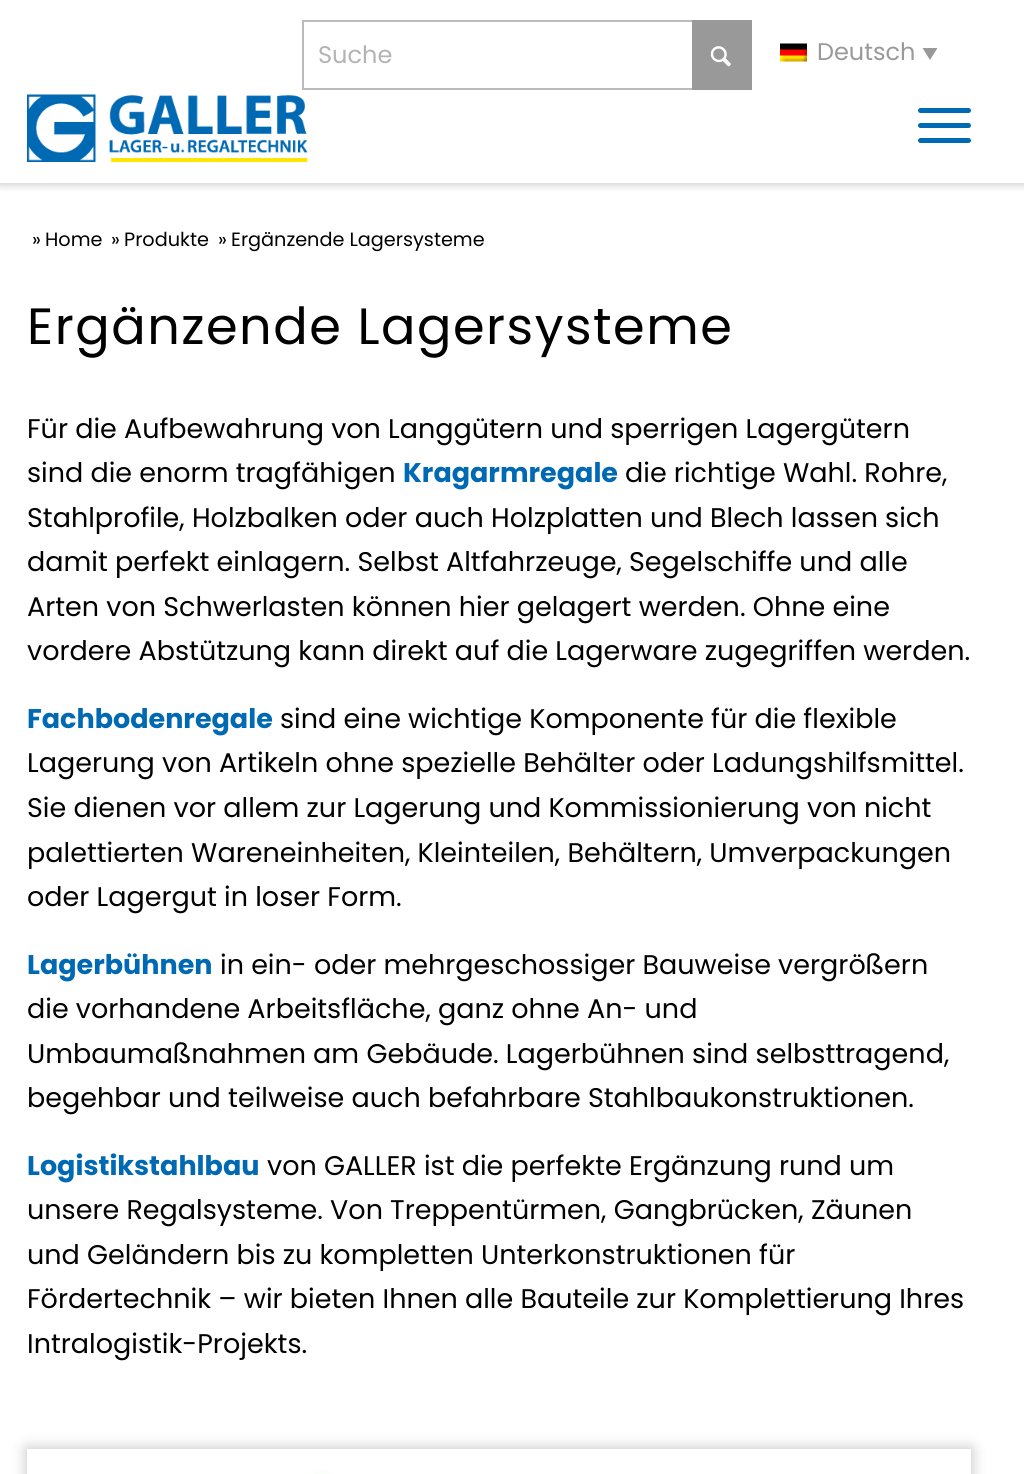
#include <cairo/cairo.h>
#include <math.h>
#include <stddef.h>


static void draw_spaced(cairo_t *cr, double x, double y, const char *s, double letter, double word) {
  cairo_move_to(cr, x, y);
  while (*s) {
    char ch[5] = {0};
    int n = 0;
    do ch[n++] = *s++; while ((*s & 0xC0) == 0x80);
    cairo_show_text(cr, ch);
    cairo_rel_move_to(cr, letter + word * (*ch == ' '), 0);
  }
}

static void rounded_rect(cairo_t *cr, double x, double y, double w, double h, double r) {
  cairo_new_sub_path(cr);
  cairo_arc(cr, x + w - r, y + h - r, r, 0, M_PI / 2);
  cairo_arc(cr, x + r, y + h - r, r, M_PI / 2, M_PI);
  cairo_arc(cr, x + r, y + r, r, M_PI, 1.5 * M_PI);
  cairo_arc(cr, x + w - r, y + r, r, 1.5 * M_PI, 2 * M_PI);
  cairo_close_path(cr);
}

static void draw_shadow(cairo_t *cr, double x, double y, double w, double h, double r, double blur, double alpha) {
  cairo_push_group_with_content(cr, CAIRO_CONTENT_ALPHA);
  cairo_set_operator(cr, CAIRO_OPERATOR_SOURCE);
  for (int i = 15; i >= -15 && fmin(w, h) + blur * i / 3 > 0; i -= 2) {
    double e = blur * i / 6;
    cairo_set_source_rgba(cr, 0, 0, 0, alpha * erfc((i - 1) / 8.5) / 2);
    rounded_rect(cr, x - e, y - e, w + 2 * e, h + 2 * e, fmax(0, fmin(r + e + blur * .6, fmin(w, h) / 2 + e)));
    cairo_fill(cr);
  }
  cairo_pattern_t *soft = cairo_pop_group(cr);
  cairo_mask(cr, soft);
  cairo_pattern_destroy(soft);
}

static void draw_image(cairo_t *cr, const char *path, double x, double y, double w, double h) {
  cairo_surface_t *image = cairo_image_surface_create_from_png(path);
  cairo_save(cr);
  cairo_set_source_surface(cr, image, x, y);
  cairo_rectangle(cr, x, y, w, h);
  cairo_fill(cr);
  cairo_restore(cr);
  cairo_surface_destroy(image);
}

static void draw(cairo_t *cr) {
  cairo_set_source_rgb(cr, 1, 1, 1);
  cairo_paint(cr);
  cairo_save(cr);
  cairo_rectangle(cr, 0, 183, 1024, 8);
  cairo_clip(cr);
  cairo_set_source_rgb(cr, 0, 0, 0);
  draw_shadow(cr, -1, -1, 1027, 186, 0, 4.5, 0.2);
  cairo_restore(cr);
  cairo_rectangle(cr, 303, 21, 448, 68);
  cairo_set_source_rgb(cr, 187 / 255.0, 187 / 255.0, 187 / 255.0);
  cairo_stroke(cr);
  cairo_set_source_rgb(cr, 153 / 255.0, 153 / 255.0, 153 / 255.0);
  cairo_rectangle(cr, 692, 20, 60, 70);
  cairo_fill(cr);
  draw_image(cr, "images/1.png", 710, 46, 21, 21);
  draw_image(cr, "images/2.png", 780, 43, 27, 19);
  cairo_new_path(cr);
  cairo_move_to(cr, 922.5, 48);
  cairo_line_to(cr, 937.5, 48);
  cairo_line_to(cr, 930, 60);
  cairo_close_path(cr);
  cairo_fill(cr);
  draw_image(cr, "images/3.png", 27, 94, 281, 68);
  cairo_set_source_rgb(cr, 0, 105 / 255.0, 180 / 255.0);
  rounded_rect(cr, 918, 123, 53, 5, 2.5);
  cairo_fill(cr);
  rounded_rect(cr, 918, 108, 53, 5, 2.5);
  cairo_fill(cr);
  rounded_rect(cr, 918, 138, 53, 5, 2.5);
  cairo_fill(cr);
  cairo_save(cr);
  cairo_set_fill_rule(cr, CAIRO_FILL_RULE_EVEN_ODD);
  cairo_new_path(cr);
  cairo_move_to(cr, 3, 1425);
  cairo_line_to(cr, 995, 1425);
  cairo_line_to(cr, 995, 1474);
  cairo_line_to(cr, 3, 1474);
  cairo_close_path(cr);
  cairo_move_to(cr, 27, 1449);
  cairo_line_to(cr, 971, 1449);
  cairo_line_to(cr, 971, 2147);
  cairo_line_to(cr, 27, 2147);
  cairo_close_path(cr);
  cairo_clip(cr);
  cairo_set_source_rgb(cr, 0, 0, 0);
  draw_shadow(cr, 27, 1449, 944, 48, 0, 7.5, 0.25);
  cairo_restore(cr);
  draw_image(cr, "images/4.png", 313, 1461, 658, 13);
  cairo_select_font_face(cr, "Poppins", CAIRO_FONT_SLANT_NORMAL, CAIRO_FONT_WEIGHT_NORMAL);
  cairo_set_font_size(cr, 24);
  cairo_set_source_rgb(cr, 179 / 255.0, 179 / 255.0, 179 / 255.0);
  cairo_move_to(cr, 318, 63);
  cairo_show_text(cr, "Suche");
  cairo_set_source_rgb(cr, 153 / 255.0, 153 / 255.0, 153 / 255.0);
  cairo_move_to(cr, 817, 60);
  cairo_show_text(cr, "Deutsch");
  cairo_set_font_size(cr, 19.25);
  cairo_set_source_rgb(cr, 0, 0, 0);
  cairo_move_to(cr, 32, 246);
  cairo_show_text(cr, "»");
  cairo_move_to(cr, 45, 246);
  cairo_show_text(cr, "Home");
  cairo_move_to(cr, 111, 246);
  cairo_show_text(cr, "»");
  cairo_move_to(cr, 124, 246);
  cairo_show_text(cr, "Produkte");
  cairo_move_to(cr, 218, 246);
  cairo_show_text(cr, "»");
  cairo_move_to(cr, 231, 246);
  cairo_show_text(cr, "Ergänzende Lagersysteme");
  cairo_set_font_size(cr, 51);
  draw_spaced(cr, 27, 344, "Ergänzende Lagersysteme", 1.5, 0);
  cairo_set_font_size(cr, 27);
  cairo_move_to(cr, 27, 438);
  cairo_show_text(cr, "Für die Aufbewahrung von Langgütern und sperrigen Lagergütern");
  cairo_move_to(cr, 27, 482);
  cairo_show_text(cr, "sind die enorm tragfähigen");
  cairo_select_font_face(cr, "Poppins", CAIRO_FONT_SLANT_NORMAL, CAIRO_FONT_WEIGHT_BOLD);
  cairo_set_source_rgb(cr, 0, 105 / 255.0, 180 / 255.0);
  cairo_move_to(cr, 403, 482);
  cairo_show_text(cr, "Kragarmregale");
  cairo_select_font_face(cr, "Poppins", CAIRO_FONT_SLANT_NORMAL, CAIRO_FONT_WEIGHT_NORMAL);
  cairo_set_source_rgb(cr, 0, 0, 0);
  cairo_move_to(cr, 625, 482);
  cairo_show_text(cr, "die richtige Wahl. Rohre,");
  cairo_move_to(cr, 27, 527);
  cairo_show_text(cr, "Stahlprofile, Holzbalken oder auch Holzplatten und Blech lassen sich");
  cairo_move_to(cr, 27, 571);
  cairo_show_text(cr, "damit perfekt einlagern. Selbst Altfahrzeuge, Segelschiffe und alle");
  cairo_move_to(cr, 27, 616);
  cairo_show_text(cr, "Arten von Schwerlasten können hier gelagert werden. Ohne eine");
  cairo_move_to(cr, 27, 660);
  cairo_show_text(cr, "vordere Abstützung kann direkt auf die Lagerware zugegriffen werden.");
  cairo_select_font_face(cr, "Poppins", CAIRO_FONT_SLANT_NORMAL, CAIRO_FONT_WEIGHT_BOLD);
  cairo_set_source_rgb(cr, 0, 105 / 255.0, 180 / 255.0);
  cairo_move_to(cr, 27, 728);
  cairo_show_text(cr, "Fachbodenregale");
  cairo_select_font_face(cr, "Poppins", CAIRO_FONT_SLANT_NORMAL, CAIRO_FONT_WEIGHT_NORMAL);
  cairo_set_source_rgb(cr, 0, 0, 0);
  cairo_move_to(cr, 280, 728);
  cairo_show_text(cr, "sind eine wichtige Komponente für die flexible");
  cairo_move_to(cr, 27, 772);
  cairo_show_text(cr, "Lagerung von Artikeln ohne spezielle Behälter oder Ladungshilfsmittel.");
  cairo_move_to(cr, 27, 817);
  cairo_show_text(cr, "Sie dienen vor allem zur Lagerung und Kommissionierung von nicht");
  cairo_move_to(cr, 27, 862);
  cairo_show_text(cr, "palettierten Wareneinheiten, Kleinteilen, Behältern, Umverpackungen");
  cairo_move_to(cr, 27, 906);
  cairo_show_text(cr, "oder Lagergut in loser Form.");
  cairo_select_font_face(cr, "Poppins", CAIRO_FONT_SLANT_NORMAL, CAIRO_FONT_WEIGHT_BOLD);
  cairo_set_source_rgb(cr, 0, 105 / 255.0, 180 / 255.0);
  cairo_move_to(cr, 27, 974);
  cairo_show_text(cr, "Lagerbühnen");
  cairo_select_font_face(cr, "Poppins", CAIRO_FONT_SLANT_NORMAL, CAIRO_FONT_WEIGHT_NORMAL);
  cairo_set_source_rgb(cr, 0, 0, 0);
  cairo_move_to(cr, 220, 974);
  cairo_show_text(cr, "in ein- oder mehrgeschossiger Bauweise vergrößern");
  cairo_move_to(cr, 27, 1018);
  cairo_show_text(cr, "die vorhandene Arbeitsfläche, ganz ohne An- und");
  cairo_move_to(cr, 27, 1063);
  cairo_show_text(cr, "Umbaumaßnahmen am Gebäude. Lagerbühnen sind selbsttragend,");
  cairo_move_to(cr, 27, 1107);
  cairo_show_text(cr, "begehbar und teilweise auch befahrbare Stahlbaukonstruktionen.");
  cairo_select_font_face(cr, "Poppins", CAIRO_FONT_SLANT_NORMAL, CAIRO_FONT_WEIGHT_BOLD);
  cairo_set_source_rgb(cr, 0, 105 / 255.0, 180 / 255.0);
  cairo_move_to(cr, 27, 1175);
  cairo_show_text(cr, "Logistikstahlbau");
  cairo_select_font_face(cr, "Poppins", CAIRO_FONT_SLANT_NORMAL, CAIRO_FONT_WEIGHT_NORMAL);
  cairo_set_source_rgb(cr, 0, 0, 0);
  cairo_move_to(cr, 267, 1175);
  cairo_show_text(cr, "von GALLER ist die perfekte Ergänzung rund um");
  cairo_move_to(cr, 27, 1219);
  cairo_show_text(cr, "unsere Regalsysteme. Von Treppentürmen, Gangbrücken, Zäunen");
  cairo_move_to(cr, 27, 1264);
  cairo_show_text(cr, "und Geländern bis zu kompletten Unterkonstruktionen für");
  cairo_move_to(cr, 27, 1308);
  cairo_show_text(cr, "Fördertechnik – wir bieten Ihnen alle Bauteile zur Komplettierung Ihres");
  cairo_move_to(cr, 27, 1353);
  cairo_show_text(cr, "Intralogistik-Projekts.");
}

int main(void) {
  cairo_surface_t *surface = cairo_image_surface_create(CAIRO_FORMAT_RGB24, 1024, 1474);
  cairo_t *cr = cairo_create(surface);
  cairo_font_options_t *options = cairo_font_options_create();
  cairo_font_options_set_hint_metrics(options, CAIRO_HINT_METRICS_OFF);
  cairo_font_options_set_hint_style(options, CAIRO_HINT_STYLE_NONE);
  cairo_set_font_options(cr, options);
  cairo_set_miter_limit(cr, 4);
  draw(cr);
  cairo_surface_write_to_png(surface, "out.png");
  cairo_font_options_destroy(options);
  cairo_destroy(cr);
  cairo_surface_destroy(surface);
  return 0;
}
